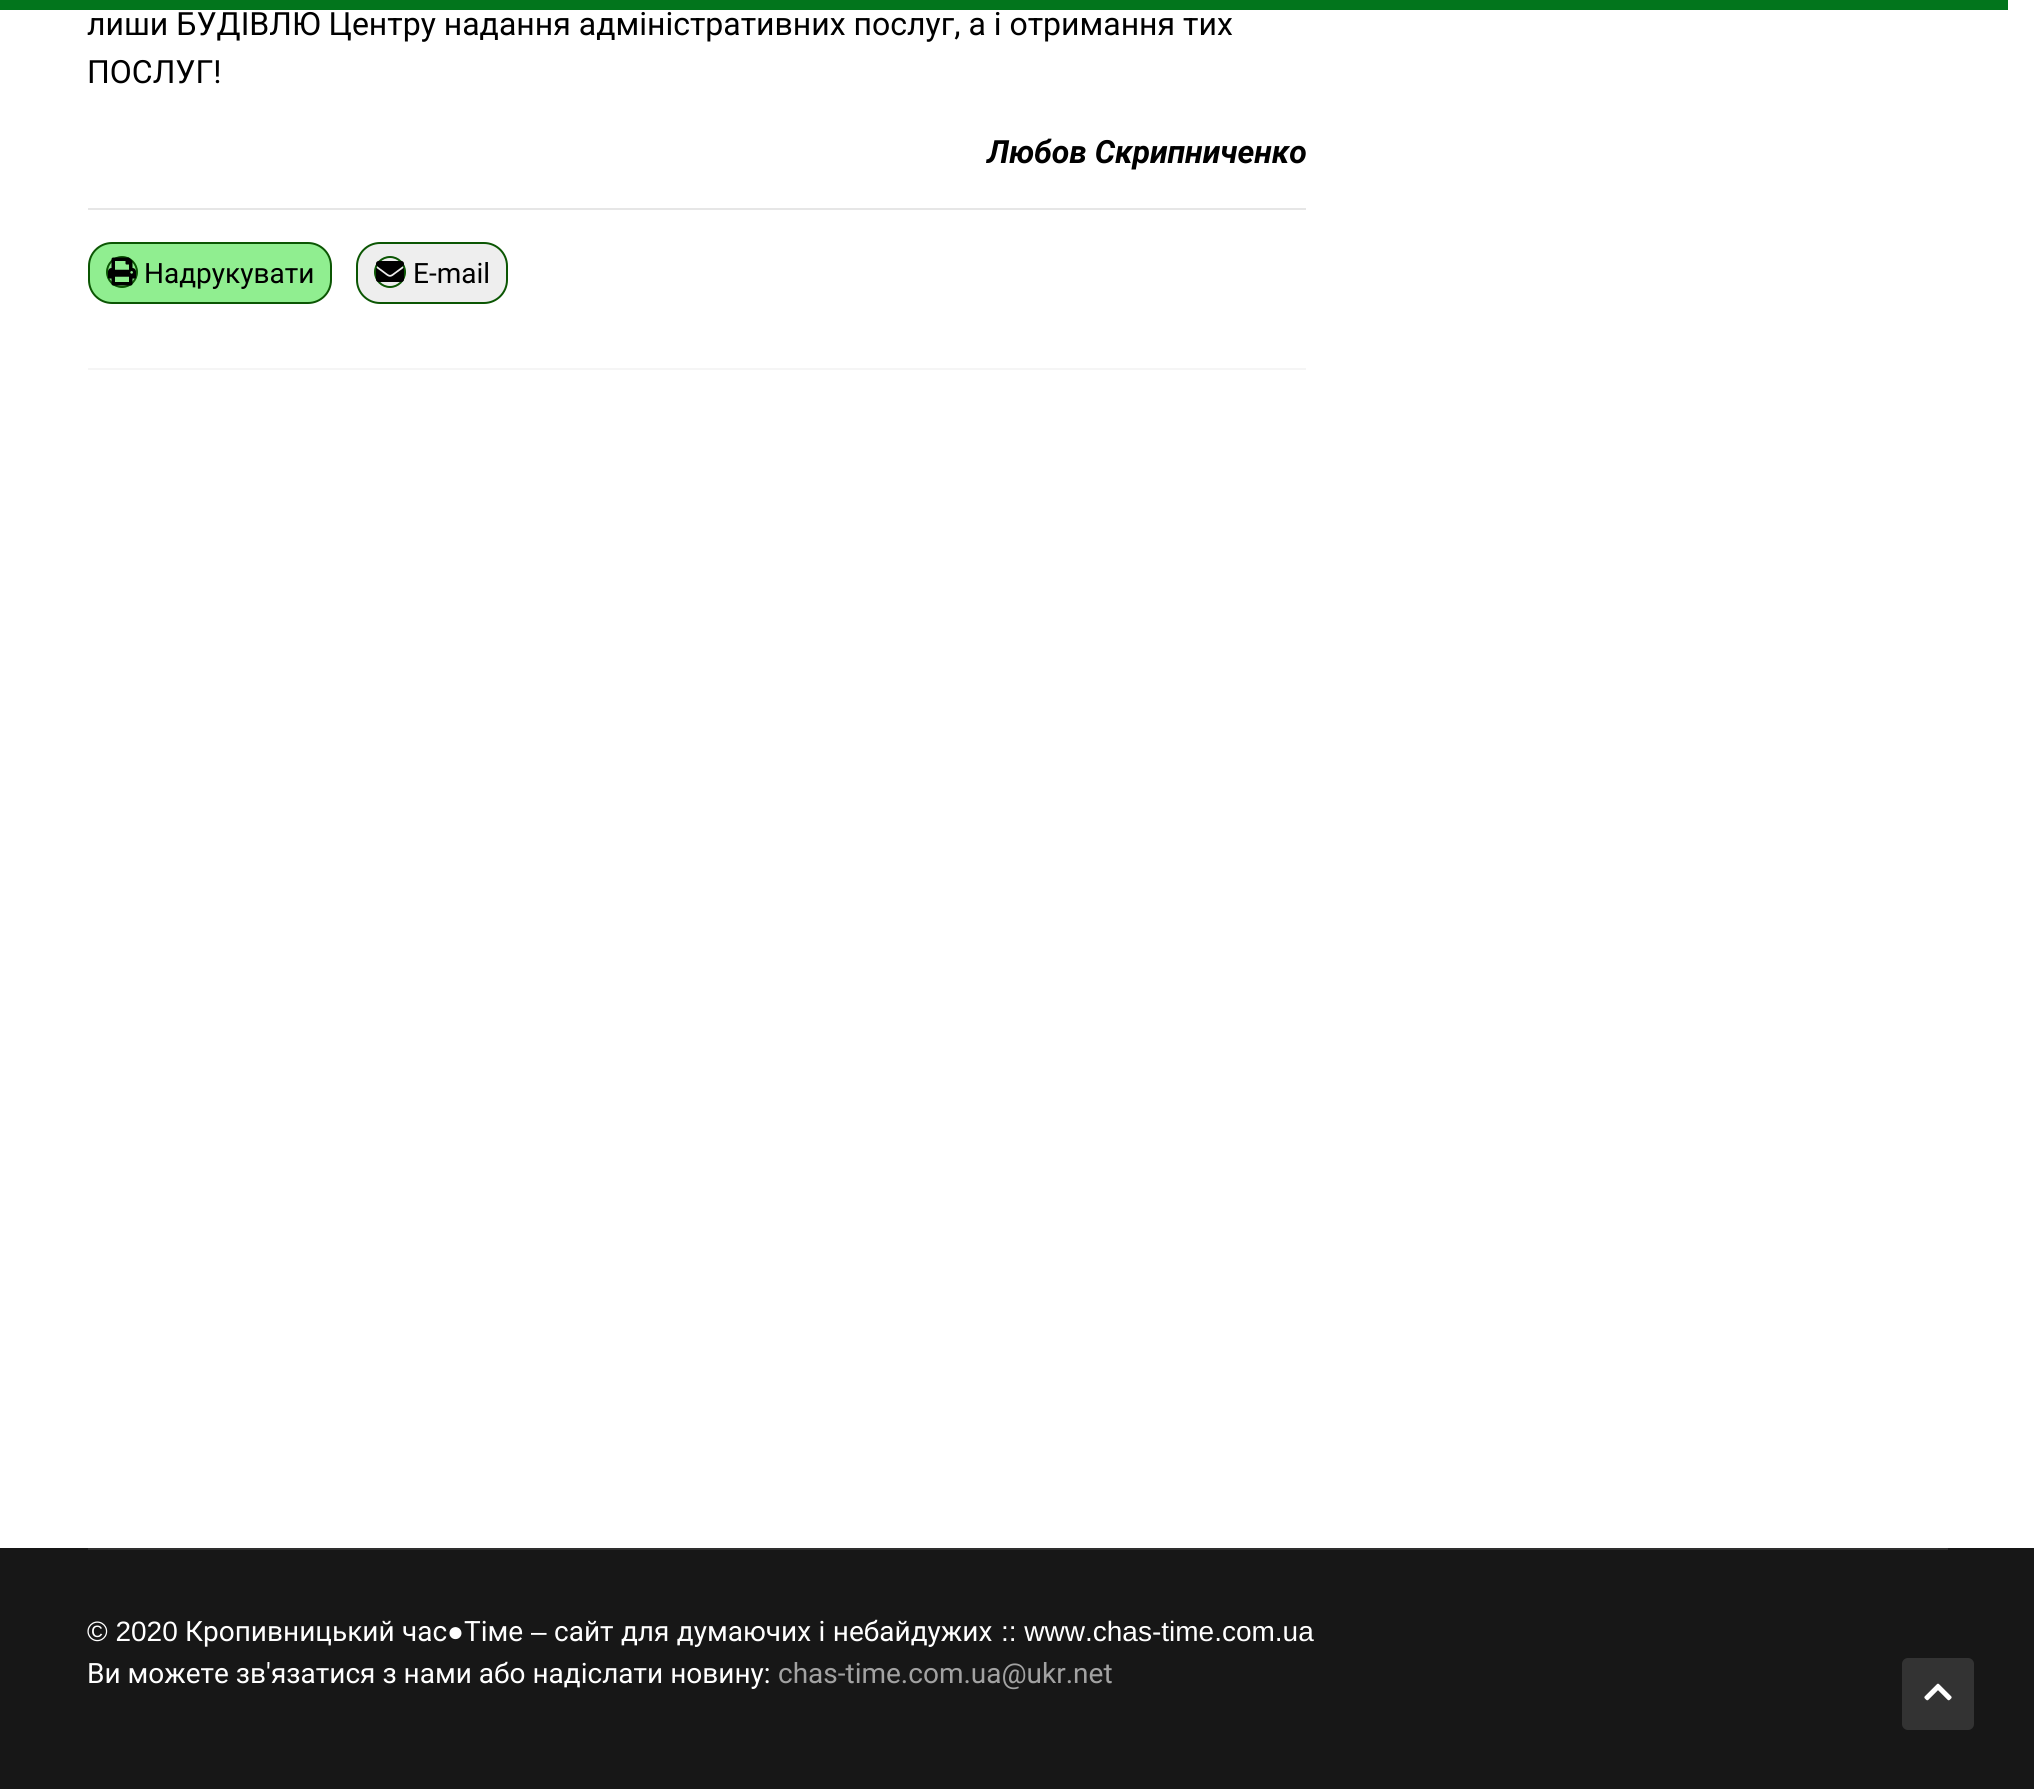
#include <cairo/cairo.h>
#include <math.h>
#include <stddef.h>


static void draw_spaced(cairo_t *cr, double x, double y, const char *s, double letter, double word) {
  cairo_move_to(cr, x, y);
  while (*s) {
    char ch[5] = {0};
    int n = 0;
    do ch[n++] = *s++; while ((*s & 0xC0) == 0x80);
    cairo_show_text(cr, ch);
    cairo_rel_move_to(cr, letter + word * (*ch == ' '), 0);
  }
}

static void rounded_rect(cairo_t *cr, double x, double y, double w, double h, double r) {
  cairo_new_sub_path(cr);
  cairo_arc(cr, x + w - r, y + h - r, r, 0, M_PI / 2);
  cairo_arc(cr, x + r, y + h - r, r, M_PI / 2, M_PI);
  cairo_arc(cr, x + r, y + r, r, M_PI, 1.5 * M_PI);
  cairo_arc(cr, x + w - r, y + r, r, 1.5 * M_PI, 2 * M_PI);
  cairo_close_path(cr);
}

static void draw_image(cairo_t *cr, const char *path, double x, double y, double w, double h) {
  cairo_surface_t *image = cairo_image_surface_create_from_png(path);
  cairo_save(cr);
  cairo_set_source_surface(cr, image, x, y);
  cairo_rectangle(cr, x, y, w, h);
  cairo_fill(cr);
  cairo_restore(cr);
  cairo_surface_destroy(image);
}

static void draw(cairo_t *cr) {
  cairo_set_source_rgb(cr, 1, 1, 1);
  cairo_paint(cr);
  cairo_set_source_rgb(cr, 2 / 255.0, 117 / 255.0, 28 / 255.0);
  cairo_rectangle(cr, 0, 0, 2008, 10);
  cairo_fill(cr);
  cairo_set_source_rgb(cr, 230 / 255.0, 230 / 255.0, 230 / 255.0);
  cairo_rectangle(cr, 88, 208, 1218, 2);
  cairo_fill(cr);
  cairo_set_source_rgb(cr, 144 / 255.0, 238 / 255.0, 144 / 255.0);
  rounded_rect(cr, 89, 243, 242, 60, 23);
  cairo_fill_preserve(cr);
  cairo_set_source_rgb(cr, 11 / 255.0, 86 / 255.0, 3 / 255.0);
  cairo_stroke(cr);
  cairo_arc(cr, 122, 272, 15, 0, 2 * M_PI);
  cairo_stroke(cr);
  draw_image(cr, "images/1.png", 108, 257, 28, 29);
  cairo_set_source_rgb(cr, 238 / 255.0, 238 / 255.0, 238 / 255.0);
  rounded_rect(cr, 357, 243, 150, 60, 23);
  cairo_fill_preserve(cr);
  cairo_set_source_rgb(cr, 11 / 255.0, 86 / 255.0, 3 / 255.0);
  cairo_stroke(cr);
  cairo_arc(cr, 390, 272, 15, 0, 2 * M_PI);
  cairo_stroke(cr);
  draw_image(cr, "images/2.png", 376, 261, 28, 21);
  cairo_set_source_rgb(cr, 245 / 255.0, 245 / 255.0, 245 / 255.0);
  cairo_rectangle(cr, 88, 368, 1218, 2);
  cairo_fill(cr);
  cairo_set_source_rgb(cr, 23 / 255.0, 23 / 255.0, 23 / 255.0);
  cairo_rectangle(cr, 0, 1548, 2034, 241);
  cairo_fill(cr);
  cairo_set_source_rgb(cr, 46 / 255.0, 46 / 255.0, 46 / 255.0);
  cairo_rectangle(cr, 88, 1548, 1860, 2);
  cairo_fill(cr);
  cairo_set_source_rgb(cr, 51 / 255.0, 51 / 255.0, 51 / 255.0);
  rounded_rect(cr, 1902, 1658, 72, 72, 6);
  cairo_fill(cr);
  draw_image(cr, "images/3.png", 1924, 1683, 28, 18);
  cairo_select_font_face(cr, "Roboto", CAIRO_FONT_SLANT_NORMAL, CAIRO_FONT_WEIGHT_NORMAL);
  cairo_set_font_size(cr, 32);
  cairo_set_source_rgb(cr, 0, 0, 0);
  cairo_move_to(cr, 87, 35);
  cairo_show_text(cr, "лиши БУДІВЛЮ Центру надання адміністративних послуг, а і отримання тих");
  cairo_move_to(cr, 87, 83);
  cairo_show_text(cr, "ПОСЛУГ!");
  cairo_select_font_face(cr, "Roboto", CAIRO_FONT_SLANT_ITALIC, CAIRO_FONT_WEIGHT_BOLD);
  cairo_move_to(cr, 987, 163);
  cairo_show_text(cr, "Любов Скрипниченко");
  cairo_select_font_face(cr, "Roboto", CAIRO_FONT_SLANT_NORMAL, CAIRO_FONT_WEIGHT_NORMAL);
  cairo_set_font_size(cr, 28);
  cairo_move_to(cr, 144, 283);
  cairo_show_text(cr, "Надрукувати");
  cairo_move_to(cr, 413, 283);
  cairo_show_text(cr, "E-mail");
  cairo_select_font_face(cr, "Liberation Sans", CAIRO_FONT_SLANT_NORMAL, CAIRO_FONT_WEIGHT_NORMAL);
  cairo_set_source_rgb(cr, 1, 1, 1);
  cairo_move_to(cr, 87, 1641);
  cairo_show_text(cr, "© 2020");
  cairo_select_font_face(cr, "Roboto", CAIRO_FONT_SLANT_NORMAL, CAIRO_FONT_WEIGHT_NORMAL);
  draw_spaced(cr, 185, 1641, "Кропивницький час", 0, 0.5);
  cairo_select_font_face(cr, "Liberation Sans", CAIRO_FONT_SLANT_NORMAL, CAIRO_FONT_WEIGHT_NORMAL);
  cairo_move_to(cr, 447, 1641);
  cairo_show_text(cr, "●");
  cairo_select_font_face(cr, "Roboto", CAIRO_FONT_SLANT_NORMAL, CAIRO_FONT_WEIGHT_NORMAL);
  cairo_move_to(cr, 464, 1641);
  cairo_show_text(cr, "Тіме");
  cairo_select_font_face(cr, "Liberation Sans", CAIRO_FONT_SLANT_NORMAL, CAIRO_FONT_WEIGHT_NORMAL);
  cairo_move_to(cr, 531, 1641);
  cairo_show_text(cr, "–");
  cairo_select_font_face(cr, "Roboto", CAIRO_FONT_SLANT_NORMAL, CAIRO_FONT_WEIGHT_NORMAL);
  draw_spaced(cr, 554, 1641, "сайт для думаючих і небайдужих", 0, 0.5);
  cairo_select_font_face(cr, "Liberation Sans", CAIRO_FONT_SLANT_NORMAL, CAIRO_FONT_WEIGHT_NORMAL);
  cairo_move_to(cr, 1001, 1641);
  cairo_show_text(cr, ":: www.chas-time.com.ua");
  cairo_select_font_face(cr, "Roboto", CAIRO_FONT_SLANT_NORMAL, CAIRO_FONT_WEIGHT_NORMAL);
  cairo_move_to(cr, 87, 1683);
  cairo_show_text(cr, "Ви можете зв'язатися з нами або надіслати новину:");
  cairo_set_source_rgb(cr, 162 / 255.0, 162 / 255.0, 162 / 255.0);
  cairo_move_to(cr, 778, 1683);
  cairo_show_text(cr, "chas-time.com.ua@ukr.net");
}

int main(void) {
  cairo_surface_t *surface = cairo_image_surface_create(CAIRO_FORMAT_RGB24, 2034, 1789);
  cairo_t *cr = cairo_create(surface);
  cairo_font_options_t *options = cairo_font_options_create();
  cairo_font_options_set_hint_metrics(options, CAIRO_HINT_METRICS_OFF);
  cairo_font_options_set_hint_style(options, CAIRO_HINT_STYLE_NONE);
  cairo_set_font_options(cr, options);
  cairo_set_miter_limit(cr, 4);
  draw(cr);
  cairo_surface_write_to_png(surface, "out.png");
  cairo_font_options_destroy(options);
  cairo_destroy(cr);
  cairo_surface_destroy(surface);
  return 0;
}
